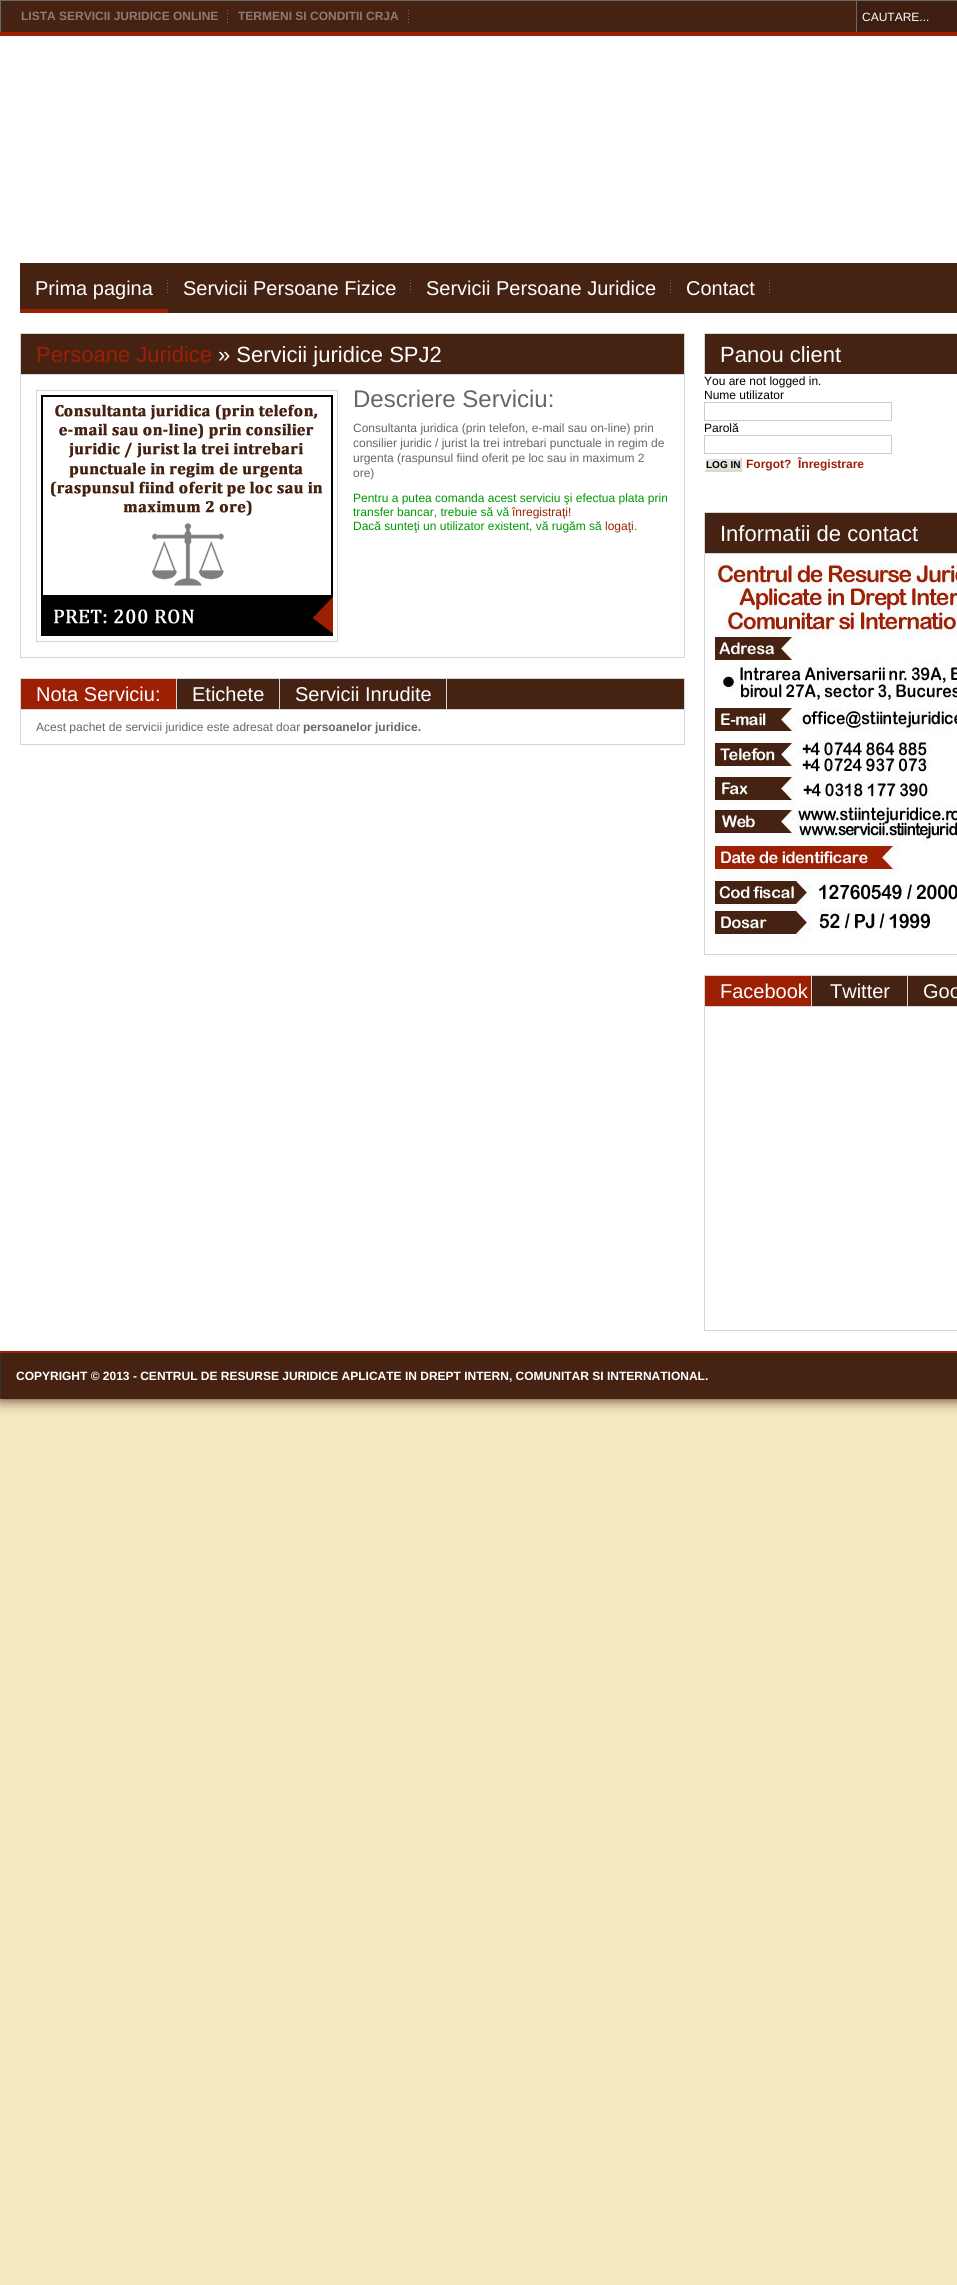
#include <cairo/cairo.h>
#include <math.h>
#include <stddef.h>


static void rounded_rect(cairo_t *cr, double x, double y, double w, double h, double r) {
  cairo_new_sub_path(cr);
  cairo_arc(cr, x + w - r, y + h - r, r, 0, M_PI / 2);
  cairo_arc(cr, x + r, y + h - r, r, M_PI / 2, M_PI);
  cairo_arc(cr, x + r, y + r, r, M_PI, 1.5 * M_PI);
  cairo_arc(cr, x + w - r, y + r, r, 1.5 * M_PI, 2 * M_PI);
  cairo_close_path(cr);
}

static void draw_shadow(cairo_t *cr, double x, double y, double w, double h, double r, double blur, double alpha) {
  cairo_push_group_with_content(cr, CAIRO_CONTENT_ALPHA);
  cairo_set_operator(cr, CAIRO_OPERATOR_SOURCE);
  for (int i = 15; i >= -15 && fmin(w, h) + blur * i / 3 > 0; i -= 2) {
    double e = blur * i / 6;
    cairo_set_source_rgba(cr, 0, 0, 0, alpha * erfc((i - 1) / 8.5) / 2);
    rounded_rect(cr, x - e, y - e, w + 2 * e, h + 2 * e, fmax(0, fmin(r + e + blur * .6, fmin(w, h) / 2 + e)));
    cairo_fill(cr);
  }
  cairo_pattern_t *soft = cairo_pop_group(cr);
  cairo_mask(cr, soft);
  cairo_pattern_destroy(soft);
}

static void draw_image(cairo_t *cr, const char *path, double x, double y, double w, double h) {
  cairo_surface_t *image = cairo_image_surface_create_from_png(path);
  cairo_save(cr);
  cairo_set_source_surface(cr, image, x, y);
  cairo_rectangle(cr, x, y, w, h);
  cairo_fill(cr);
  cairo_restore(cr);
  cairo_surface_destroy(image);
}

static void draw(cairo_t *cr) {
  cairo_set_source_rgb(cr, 245 / 255.0, 233 / 255.0, 193 / 255.0);
  cairo_paint(cr);
  cairo_set_source_rgb(cr, 70 / 255.0, 34 / 255.0, 18 / 255.0);
  draw_shadow(cr, 0, 0, 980, 1399, 0, 7.5, 1);
  cairo_set_source_rgb(cr, 1, 1, 1);
  cairo_rectangle(cr, 0, 36, 957, 1315);
  cairo_fill(cr);
  cairo_set_source_rgb(cr, 157 / 255.0, 32 / 255.0, 4 / 255.0);
  cairo_rectangle(cr, 0, 32, 957, 4);
  cairo_fill(cr);
  cairo_set_source_rgb(cr, 70 / 255.0, 34 / 255.0, 18 / 255.0);
  cairo_rectangle(cr, 1, 1, 855, 31);
  cairo_fill(cr);
  cairo_set_source_rgb(cr, 104 / 255.0, 104 / 255.0, 104 / 255.0);
  cairo_rectangle(cr, 0, 0, 957, 1);
  cairo_fill(cr);
  cairo_rectangle(cr, 0, 0, 1, 32);
  cairo_fill(cr);
  draw_image(cr, "images/1.png", 227, 10, 1, 13);
  draw_image(cr, "images/1.png", 408, 10, 1, 13);
  cairo_set_source_rgb(cr, 61 / 255.0, 30 / 255.0, 16 / 255.0);
  cairo_rectangle(cr, 857, 1, 100, 31);
  cairo_fill(cr);
  cairo_set_source_rgb(cr, 104 / 255.0, 104 / 255.0, 104 / 255.0);
  cairo_rectangle(cr, 856, 1, 1, 31);
  cairo_fill(cr);
  cairo_set_source_rgb(cr, 70 / 255.0, 34 / 255.0, 18 / 255.0);
  cairo_rectangle(cr, 20, 263, 937, 50);
  cairo_fill(cr);
  draw_image(cr, "images/1.png", 167, 280, 1, 13);
  draw_image(cr, "images/1.png", 410, 280, 1, 13);
  draw_image(cr, "images/1.png", 670, 280, 1, 13);
  draw_image(cr, "images/1.png", 769, 280, 1, 13);
  cairo_set_source_rgb(cr, 157 / 255.0, 32 / 255.0, 4 / 255.0);
  cairo_rectangle(cr, 20, 309, 148, 4);
  cairo_fill(cr);
  cairo_set_source_rgb(cr, 70 / 255.0, 34 / 255.0, 18 / 255.0);
  cairo_rectangle(cr, 20.5, 333.5, 664, 41);
  cairo_fill_preserve(cr);
  cairo_set_source_rgb(cr, 213 / 255.0, 213 / 255.0, 213 / 255.0);
  cairo_set_line_width(cr, 1);
  cairo_stroke(cr);
  cairo_rectangle(cr, 684, 375, 1, 283);
  cairo_fill(cr);
  cairo_rectangle(cr, 20, 657, 665, 1);
  cairo_fill(cr);
  cairo_rectangle(cr, 20, 375, 1, 283);
  cairo_fill(cr);
  cairo_rectangle(cr, 36.5, 390.5, 301, 251);
  cairo_stroke(cr);
  draw_image(cr, "images/2.png", 41, 395, 292, 241);
  cairo_set_source_rgb(cr, 70 / 255.0, 34 / 255.0, 18 / 255.0);
  cairo_rectangle(cr, 177, 679, 507, 30);
  cairo_fill(cr);
  cairo_rectangle(cr, 20.5, 678.5, 664, 31);
  cairo_set_source_rgb(cr, 213 / 255.0, 213 / 255.0, 213 / 255.0);
  cairo_stroke(cr);
  cairo_rectangle(cr, 176, 679, 1, 30);
  cairo_fill(cr);
  cairo_set_source_rgb(cr, 157 / 255.0, 32 / 255.0, 4 / 255.0);
  cairo_rectangle(cr, 21, 679, 155, 30);
  cairo_fill(cr);
  cairo_set_source_rgb(cr, 213 / 255.0, 213 / 255.0, 213 / 255.0);
  cairo_rectangle(cr, 279, 679, 1, 30);
  cairo_fill(cr);
  cairo_rectangle(cr, 446, 679, 1, 30);
  cairo_fill(cr);
  cairo_rectangle(cr, 684, 710, 1, 35);
  cairo_fill(cr);
  cairo_rectangle(cr, 20, 744, 665, 1);
  cairo_fill(cr);
  cairo_rectangle(cr, 20, 710, 1, 35);
  cairo_fill(cr);
  cairo_set_source_rgb(cr, 70 / 255.0, 34 / 255.0, 18 / 255.0);
  cairo_rectangle(cr, 705, 334, 252, 40);
  cairo_fill(cr);
  cairo_set_source_rgb(cr, 213 / 255.0, 213 / 255.0, 213 / 255.0);
  cairo_rectangle(cr, 704, 333, 253, 1);
  cairo_fill(cr);
  cairo_rectangle(cr, 704, 333, 1, 41);
  cairo_fill(cr);
  cairo_rectangle(cr, 704.5, 402.5, 187, 18);
  cairo_set_source_rgb(cr, 204 / 255.0, 204 / 255.0, 204 / 255.0);
  cairo_stroke(cr);
  cairo_rectangle(cr, 704.5, 435.5, 187, 18);
  cairo_stroke(cr);
  cairo_set_source_rgb(cr, 227 / 255.0, 227 / 255.0, 219 / 255.0);
  cairo_rectangle(cr, 704, 457, 38, 15);
  cairo_fill(cr);
  cairo_set_source_rgb(cr, 1, 1, 1);
  cairo_new_path(cr);
  cairo_move_to(cr, 704, 457);
  cairo_line_to(cr, 742, 457);
  cairo_line_to(cr, 740, 459);
  cairo_line_to(cr, 706, 459);
  cairo_close_path(cr);
  cairo_fill(cr);
  cairo_set_source_rgb(cr, 216 / 255.0, 216 / 255.0, 208 / 255.0);
  cairo_new_path(cr);
  cairo_move_to(cr, 742, 457);
  cairo_line_to(cr, 742, 472);
  cairo_line_to(cr, 740, 470);
  cairo_line_to(cr, 740, 459);
  cairo_close_path(cr);
  cairo_fill(cr);
  cairo_new_path(cr);
  cairo_move_to(cr, 742, 472);
  cairo_line_to(cr, 704, 472);
  cairo_line_to(cr, 706, 470);
  cairo_line_to(cr, 740, 470);
  cairo_close_path(cr);
  cairo_fill(cr);
  cairo_set_source_rgb(cr, 1, 1, 1);
  cairo_new_path(cr);
  cairo_move_to(cr, 704, 472);
  cairo_line_to(cr, 704, 457);
  cairo_line_to(cr, 706, 459);
  cairo_line_to(cr, 706, 470);
  cairo_close_path(cr);
  cairo_fill(cr);
  cairo_set_source_rgb(cr, 70 / 255.0, 34 / 255.0, 18 / 255.0);
  cairo_rectangle(cr, 705, 513, 252, 40);
  cairo_fill(cr);
  cairo_set_source_rgb(cr, 213 / 255.0, 213 / 255.0, 213 / 255.0);
  cairo_rectangle(cr, 704, 512, 253, 1);
  cairo_fill(cr);
  cairo_rectangle(cr, 704, 512, 1, 41);
  cairo_fill(cr);
  cairo_rectangle(cr, 704.5, 553.5, 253, 401);
  cairo_stroke(cr);
  draw_image(cr, "images/3.png", 715, 564, 242, 377);
  cairo_set_source_rgb(cr, 70 / 255.0, 34 / 255.0, 18 / 255.0);
  cairo_rectangle(cr, 812, 976, 145, 30);
  cairo_fill(cr);
  cairo_set_source_rgb(cr, 213 / 255.0, 213 / 255.0, 213 / 255.0);
  cairo_rectangle(cr, 704, 975, 253, 1);
  cairo_fill(cr);
  cairo_rectangle(cr, 704, 975, 1, 31);
  cairo_fill(cr);
  cairo_rectangle(cr, 811, 976, 1, 30);
  cairo_fill(cr);
  cairo_set_source_rgb(cr, 157 / 255.0, 32 / 255.0, 4 / 255.0);
  cairo_rectangle(cr, 705, 976, 106, 30);
  cairo_fill(cr);
  cairo_set_source_rgb(cr, 213 / 255.0, 213 / 255.0, 213 / 255.0);
  cairo_rectangle(cr, 907, 976, 1, 30);
  cairo_fill(cr);
  cairo_rectangle(cr, 704.5, 1006.5, 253, 324);
  cairo_stroke(cr);
  cairo_set_source_rgb(cr, 157 / 255.0, 32 / 255.0, 4 / 255.0);
  cairo_rectangle(cr, 0, 1351, 957, 2);
  cairo_fill(cr);
  cairo_set_source_rgb(cr, 70 / 255.0, 34 / 255.0, 18 / 255.0);
  cairo_rectangle(cr, 1, 1353, 956, 46);
  cairo_fill(cr);
  cairo_set_source_rgb(cr, 51 / 255.0, 51 / 255.0, 51 / 255.0);
  cairo_rectangle(cr, 0, 1353, 1, 46);
  cairo_fill(cr);
  cairo_select_font_face(cr, "Liberation Sans", CAIRO_FONT_SLANT_NORMAL, CAIRO_FONT_WEIGHT_BOLD);
  cairo_set_font_size(cr, 12);
  cairo_set_source_rgb(cr, 144 / 255.0, 122 / 255.0, 113 / 255.0);
  cairo_move_to(cr, 21, 20);
  cairo_show_text(cr, "LISTA SERVICII JURIDICE ONLINE");
  cairo_move_to(cr, 238, 20);
  cairo_show_text(cr, "TERMENI SI CONDITII CRJA");
  cairo_select_font_face(cr, "Liberation Sans", CAIRO_FONT_SLANT_NORMAL, CAIRO_FONT_WEIGHT_NORMAL);
  cairo_set_source_rgb(cr, 1, 1, 1);
  cairo_move_to(cr, 862, 21);
  cairo_show_text(cr, "CAUTARE...");
  cairo_set_font_size(cr, 20);
  cairo_move_to(cr, 35, 295);
  cairo_show_text(cr, "Prima pagina");
  cairo_move_to(cr, 183, 295);
  cairo_show_text(cr, "Servicii Persoane Fizice");
  cairo_move_to(cr, 426, 295);
  cairo_show_text(cr, "Servicii Persoane Juridice");
  cairo_move_to(cr, 686, 295);
  cairo_show_text(cr, "Contact");
  cairo_set_font_size(cr, 22);
  cairo_set_source_rgb(cr, 157 / 255.0, 32 / 255.0, 4 / 255.0);
  cairo_move_to(cr, 36, 362);
  cairo_show_text(cr, "Persoane Juridice");
  cairo_set_source_rgb(cr, 1, 1, 1);
  cairo_move_to(cr, 218, 362);
  cairo_show_text(cr, "» Servicii juridice SPJ2");
  cairo_set_font_size(cr, 24);
  cairo_set_source_rgb(cr, 102 / 255.0, 102 / 255.0, 102 / 255.0);
  cairo_move_to(cr, 353, 407);
  cairo_show_text(cr, "Descriere Serviciu:");
  cairo_set_font_size(cr, 12);
  cairo_move_to(cr, 353, 432);
  cairo_show_text(cr, "Consultanta juridica (prin telefon, e-mail sau on-line) prin");
  cairo_move_to(cr, 353, 447);
  cairo_show_text(cr, "consilier juridic / jurist la trei intrebari punctuale in regim de");
  cairo_move_to(cr, 353, 462);
  cairo_show_text(cr, "urgenta (raspunsul fiind oferit pe loc sau in maximum 2");
  cairo_move_to(cr, 353, 477);
  cairo_show_text(cr, "ore)");
  cairo_set_source_rgb(cr, 0, 153 / 255.0, 0);
  cairo_move_to(cr, 353, 502);
  cairo_show_text(cr, "Pentru a putea comanda acest serviciu şi efectua plata prin");
  cairo_move_to(cr, 353, 516);
  cairo_show_text(cr, "transfer bancar, trebuie să vă");
  cairo_set_source_rgb(cr, 157 / 255.0, 32 / 255.0, 4 / 255.0);
  cairo_move_to(cr, 512, 516);
  cairo_show_text(cr, "înregistraţi!");
  cairo_set_source_rgb(cr, 0, 153 / 255.0, 0);
  cairo_move_to(cr, 353, 530);
  cairo_show_text(cr, "Dacă sunteţi un utilizator existent, vă rugăm să");
  cairo_set_source_rgb(cr, 157 / 255.0, 32 / 255.0, 4 / 255.0);
  cairo_move_to(cr, 605, 530);
  cairo_show_text(cr, "logaţi");
  cairo_set_source_rgb(cr, 0, 153 / 255.0, 0);
  cairo_move_to(cr, 634, 530);
  cairo_show_text(cr, ".");
  cairo_set_font_size(cr, 20);
  cairo_set_source_rgb(cr, 1, 1, 1);
  cairo_move_to(cr, 36, 701);
  cairo_show_text(cr, "Nota Serviciu:");
  cairo_move_to(cr, 192, 701);
  cairo_show_text(cr, "Etichete");
  cairo_move_to(cr, 295, 701);
  cairo_show_text(cr, "Servicii Inrudite");
  cairo_set_font_size(cr, 12);
  cairo_set_source_rgb(cr, 102 / 255.0, 102 / 255.0, 102 / 255.0);
  cairo_move_to(cr, 36, 731);
  cairo_show_text(cr, "Acest pachet de servicii juridice este adresat doar");
  cairo_select_font_face(cr, "Liberation Sans", CAIRO_FONT_SLANT_NORMAL, CAIRO_FONT_WEIGHT_BOLD);
  cairo_move_to(cr, 303, 731);
  cairo_show_text(cr, "persoanelor juridice.");
  cairo_select_font_face(cr, "Liberation Sans", CAIRO_FONT_SLANT_NORMAL, CAIRO_FONT_WEIGHT_NORMAL);
  cairo_set_font_size(cr, 22);
  cairo_set_source_rgb(cr, 1, 1, 1);
  cairo_move_to(cr, 720, 362);
  cairo_show_text(cr, "Panou client");
  cairo_set_font_size(cr, 12);
  cairo_set_source_rgb(cr, 0, 0, 0);
  cairo_move_to(cr, 704, 385);
  cairo_show_text(cr, "You are not logged in.");
  cairo_move_to(cr, 704, 399);
  cairo_show_text(cr, "Nume utilizator");
  cairo_move_to(cr, 704, 432);
  cairo_show_text(cr, "Parolă");
  cairo_select_font_face(cr, "Liberation Sans", CAIRO_FONT_SLANT_NORMAL, CAIRO_FONT_WEIGHT_BOLD);
  cairo_set_font_size(cr, 10);
  cairo_move_to(cr, 706, 468);
  cairo_show_text(cr, "LOG IN");
  cairo_set_font_size(cr, 12);
  cairo_set_source_rgb(cr, 157 / 255.0, 32 / 255.0, 4 / 255.0);
  cairo_move_to(cr, 746, 468);
  cairo_show_text(cr, "Forgot?");
  cairo_move_to(cr, 798, 468);
  cairo_show_text(cr, "Înregistrare");
  cairo_select_font_face(cr, "Liberation Sans", CAIRO_FONT_SLANT_NORMAL, CAIRO_FONT_WEIGHT_NORMAL);
  cairo_set_font_size(cr, 22);
  cairo_set_source_rgb(cr, 1, 1, 1);
  cairo_move_to(cr, 720, 541);
  cairo_show_text(cr, "Informatii de contact");
  cairo_set_font_size(cr, 20);
  cairo_move_to(cr, 720, 998);
  cairo_show_text(cr, "Facebook");
  cairo_move_to(cr, 830, 998);
  cairo_show_text(cr, "Twitter");
  cairo_move_to(cr, 923, 998);
  cairo_show_text(cr, "Goo");
  cairo_select_font_face(cr, "Liberation Sans", CAIRO_FONT_SLANT_NORMAL, CAIRO_FONT_WEIGHT_BOLD);
  cairo_set_font_size(cr, 12);
  cairo_move_to(cr, 16, 1380);
  cairo_show_text(cr, "COPYRIGHT © 2013 - CENTRUL DE RESURSE JURIDICE APLICATE IN DREPT INTERN, COMUNITAR SI INTERNATIONAL.");
}

int main(void) {
  cairo_surface_t *surface = cairo_image_surface_create(CAIRO_FORMAT_RGB24, 957, 2285);
  cairo_t *cr = cairo_create(surface);
  cairo_font_options_t *options = cairo_font_options_create();
  cairo_font_options_set_hint_metrics(options, CAIRO_HINT_METRICS_OFF);
  cairo_font_options_set_hint_style(options, CAIRO_HINT_STYLE_NONE);
  cairo_set_font_options(cr, options);
  cairo_set_miter_limit(cr, 4);
  draw(cr);
  cairo_surface_write_to_png(surface, "out.png");
  cairo_font_options_destroy(options);
  cairo_destroy(cr);
  cairo_surface_destroy(surface);
  return 0;
}
